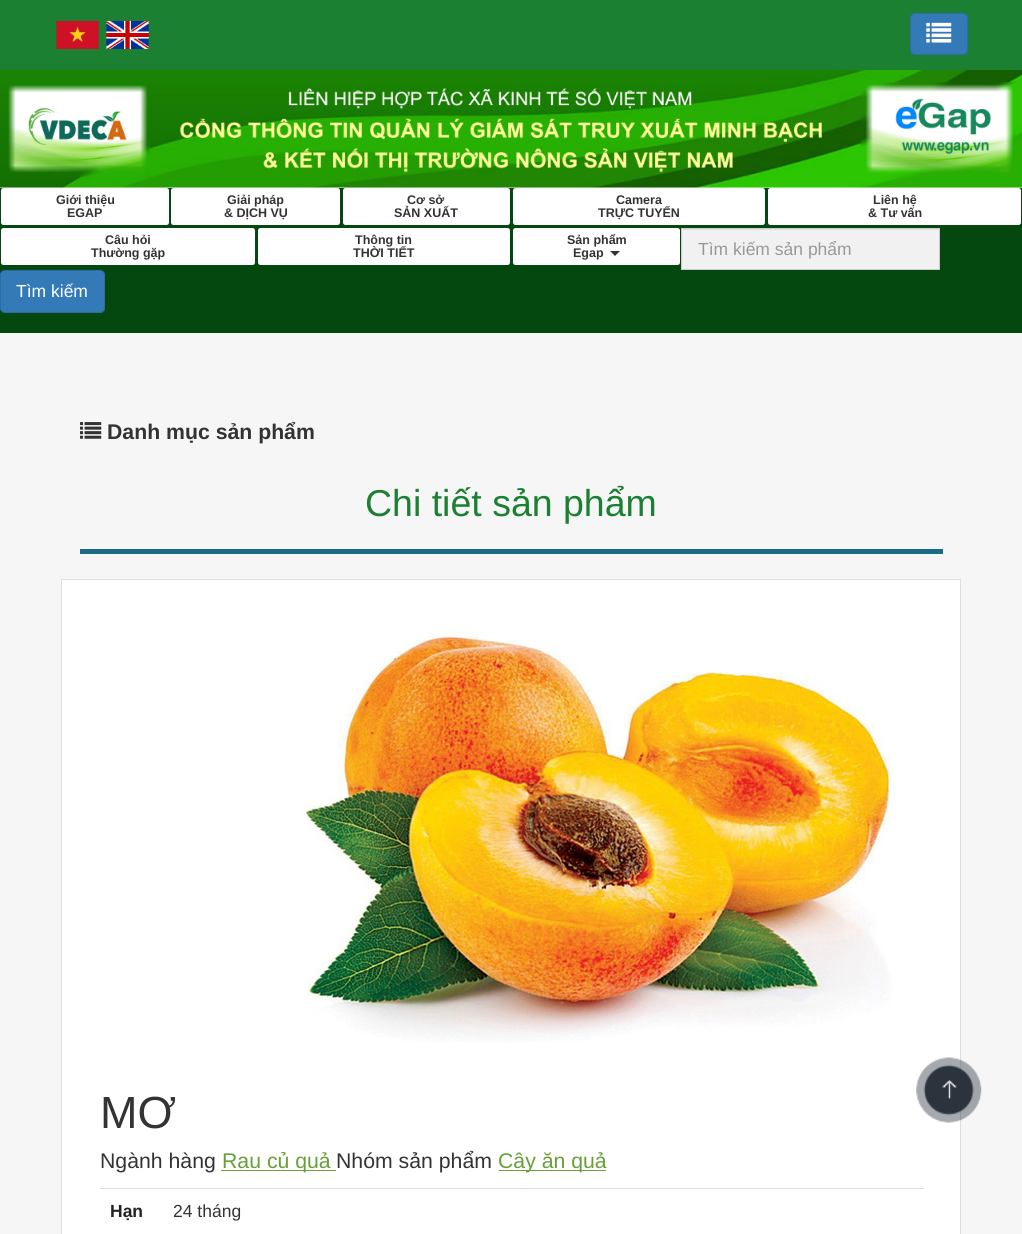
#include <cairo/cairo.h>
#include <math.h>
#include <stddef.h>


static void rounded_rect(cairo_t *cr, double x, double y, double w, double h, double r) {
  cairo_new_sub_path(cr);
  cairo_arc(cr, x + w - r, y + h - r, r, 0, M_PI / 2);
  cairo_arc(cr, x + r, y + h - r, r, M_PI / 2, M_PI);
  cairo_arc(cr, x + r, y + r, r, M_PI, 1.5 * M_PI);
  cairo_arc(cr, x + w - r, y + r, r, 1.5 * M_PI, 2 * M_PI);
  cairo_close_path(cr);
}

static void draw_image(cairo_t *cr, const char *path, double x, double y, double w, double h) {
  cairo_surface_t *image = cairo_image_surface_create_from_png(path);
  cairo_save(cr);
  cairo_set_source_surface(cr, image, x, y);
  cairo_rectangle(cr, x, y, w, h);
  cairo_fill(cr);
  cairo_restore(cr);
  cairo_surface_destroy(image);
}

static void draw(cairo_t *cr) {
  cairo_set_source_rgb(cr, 246 / 255.0, 246 / 255.0, 246 / 255.0);
  cairo_paint(cr);
  cairo_set_source_rgb(cr, 27 / 255.0, 128 / 255.0, 50 / 255.0);
  cairo_rectangle(cr, 0, 0, 1022, 70);
  cairo_fill(cr);
  draw_image(cr, "images/1.png", 56, 21, 43, 28);
  draw_image(cr, "images/2.png", 106, 21, 43, 28);
  cairo_set_source_rgb(cr, 51 / 255.0, 122 / 255.0, 183 / 255.0);
  rounded_rect(cr, 910.5, 13.5, 57, 41, 4.5);
  cairo_fill_preserve(cr);
  cairo_set_source_rgb(cr, 46 / 255.0, 109 / 255.0, 164 / 255.0);
  cairo_set_line_width(cr, 1);
  cairo_stroke(cr);
  draw_image(cr, "images/3.png", 926, 22, 26, 21);
  draw_image(cr, "images/4.png", 0, 70, 1022, 118);
  cairo_set_source_rgb(cr, 5 / 255.0, 72 / 255.0, 15 / 255.0);
  cairo_rectangle(cr, 0, 188, 1022, 145);
  cairo_fill(cr);
  cairo_set_source_rgb(cr, 1, 1, 1);
  rounded_rect(cr, 1, 188, 168, 37, 2.5);
  cairo_fill(cr);
  rounded_rect(cr, 171, 188, 169, 37, 2.5);
  cairo_fill(cr);
  rounded_rect(cr, 343, 188, 167, 37, 2.5);
  cairo_fill(cr);
  rounded_rect(cr, 513, 188, 252, 37, 2.5);
  cairo_fill(cr);
  rounded_rect(cr, 768, 188, 253, 37, 2.5);
  cairo_fill(cr);
  rounded_rect(cr, 1, 228, 254, 37, 2.5);
  cairo_fill(cr);
  rounded_rect(cr, 258, 228, 252, 37, 2.5);
  cairo_fill(cr);
  rounded_rect(cr, 513, 228, 167, 37, 2.5);
  cairo_fill(cr);
  cairo_set_source_rgb(cr, 51 / 255.0, 51 / 255.0, 51 / 255.0);
  cairo_new_path(cr);
  cairo_move_to(cr, 610, 251);
  cairo_line_to(cr, 620, 251);
  cairo_line_to(cr, 615, 256);
  cairo_close_path(cr);
  cairo_fill(cr);
  cairo_set_source_rgb(cr, 241 / 255.0, 241 / 255.0, 241 / 255.0);
  cairo_rectangle(cr, 682, 229, 257, 40);
  cairo_fill(cr);
  cairo_set_source_rgb(cr, 223 / 255.0, 223 / 255.0, 223 / 255.0);
  cairo_rectangle(cr, 683, 229, 256, 1);
  cairo_fill(cr);
  cairo_rectangle(cr, 681.5, 228.5, 258, 41);
  cairo_set_source_rgb(cr, 204 / 255.0, 204 / 255.0, 204 / 255.0);
  cairo_stroke(cr);
  cairo_set_source_rgb(cr, 51 / 255.0, 122 / 255.0, 183 / 255.0);
  rounded_rect(cr, 0.5, 270.5, 104, 42, 4.5);
  cairo_fill_preserve(cr);
  cairo_set_source_rgb(cr, 46 / 255.0, 109 / 255.0, 164 / 255.0);
  cairo_stroke(cr);
  draw_image(cr, "images/5.png", 80, 422, 22, 17);
  cairo_set_source_rgb(cr, 27 / 255.0, 109 / 255.0, 133 / 255.0);
  cairo_rectangle(cr, 80, 549, 863, 5);
  cairo_fill(cr);
  cairo_set_source_rgb(cr, 1, 1, 1);
  cairo_rectangle(cr, 61.5, 579.5, 899, 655);
  cairo_fill_preserve(cr);
  cairo_set_source_rgb(cr, 221 / 255.0, 221 / 255.0, 221 / 255.0);
  cairo_stroke(cr);
  draw_image(cr, "images/6.png", 300, 631, 597, 412);
  cairo_set_source_rgb(cr, 104 / 255.0, 159 / 255.0, 56 / 255.0);
  cairo_rectangle(cr, 221, 1170, 115, 1);
  cairo_fill(cr);
  cairo_rectangle(cr, 499, 1170, 107, 1);
  cairo_fill(cr);
  cairo_set_source_rgb(cr, 221 / 255.0, 221 / 255.0, 221 / 255.0);
  cairo_rectangle(cr, 100, 1188, 824, 1);
  cairo_fill(cr);
  draw_image(cr, "images/7.png", 916, 1057, 66, 66);
  cairo_select_font_face(cr, "Liberation Sans", CAIRO_FONT_SLANT_NORMAL, CAIRO_FONT_WEIGHT_BOLD);
  cairo_set_font_size(cr, 12.5);
  cairo_set_source_rgb(cr, 51 / 255.0, 51 / 255.0, 51 / 255.0);
  cairo_move_to(cr, 56, 204);
  cairo_show_text(cr, "Giới thiệu");
  cairo_move_to(cr, 67, 217);
  cairo_show_text(cr, "EGAP");
  cairo_move_to(cr, 227, 204);
  cairo_show_text(cr, "Giải pháp");
  cairo_move_to(cr, 224, 217);
  cairo_show_text(cr, "& DỊCH VỤ");
  cairo_move_to(cr, 407, 204);
  cairo_show_text(cr, "Cơ sở");
  cairo_move_to(cr, 394, 217);
  cairo_show_text(cr, "SẢN XUẤT");
  cairo_move_to(cr, 616, 204);
  cairo_show_text(cr, "Camera");
  cairo_move_to(cr, 598, 217);
  cairo_show_text(cr, "TRỰC TUYẾN");
  cairo_move_to(cr, 873, 204);
  cairo_show_text(cr, "Liên hệ");
  cairo_move_to(cr, 868, 217);
  cairo_show_text(cr, "& Tư vấn");
  cairo_move_to(cr, 105, 244);
  cairo_show_text(cr, "Câu hỏi");
  cairo_move_to(cr, 91, 257);
  cairo_show_text(cr, "Thường gặp");
  cairo_move_to(cr, 355, 244);
  cairo_show_text(cr, "Thông tin");
  cairo_move_to(cr, 353, 257);
  cairo_show_text(cr, "THỜI TIẾT");
  cairo_move_to(cr, 567, 244);
  cairo_show_text(cr, "Sản phẩm");
  cairo_move_to(cr, 573, 257);
  cairo_show_text(cr, "Egap");
  cairo_select_font_face(cr, "Liberation Sans", CAIRO_FONT_SLANT_NORMAL, CAIRO_FONT_WEIGHT_NORMAL);
  cairo_set_font_size(cr, 17.5);
  cairo_set_source_rgb(cr, 153 / 255.0, 153 / 255.0, 153 / 255.0);
  cairo_move_to(cr, 698, 255);
  cairo_show_text(cr, "Tìm kiếm sản phẩm");
  cairo_set_source_rgb(cr, 1, 1, 1);
  cairo_move_to(cr, 16, 297);
  cairo_show_text(cr, "Tìm kiếm");
  cairo_select_font_face(cr, "Liberation Sans", CAIRO_FONT_SLANT_NORMAL, CAIRO_FONT_WEIGHT_BOLD);
  cairo_set_font_size(cr, 21.25);
  cairo_set_source_rgb(cr, 51 / 255.0, 51 / 255.0, 51 / 255.0);
  cairo_move_to(cr, 107, 439);
  cairo_show_text(cr, "Danh mục sản phẩm");
  cairo_select_font_face(cr, "Liberation Sans", CAIRO_FONT_SLANT_NORMAL, CAIRO_FONT_WEIGHT_NORMAL);
  cairo_set_font_size(cr, 37.5);
  cairo_set_source_rgb(cr, 27 / 255.0, 128 / 255.0, 50 / 255.0);
  cairo_move_to(cr, 365, 516);
  cairo_show_text(cr, "Chi tiết sản phẩm");
  cairo_set_font_size(cr, 45);
  cairo_set_source_rgb(cr, 51 / 255.0, 51 / 255.0, 51 / 255.0);
  cairo_move_to(cr, 100, 1128);
  cairo_show_text(cr, "MƠ");
  cairo_set_font_size(cr, 21.25);
  cairo_move_to(cr, 100, 1168);
  cairo_show_text(cr, "Ngành hàng");
  cairo_set_source_rgb(cr, 104 / 255.0, 159 / 255.0, 56 / 255.0);
  cairo_move_to(cr, 222, 1168);
  cairo_show_text(cr, "Rau củ quả");
  cairo_set_source_rgb(cr, 51 / 255.0, 51 / 255.0, 51 / 255.0);
  cairo_move_to(cr, 336, 1168);
  cairo_show_text(cr, "Nhóm sản phẩm");
  cairo_set_source_rgb(cr, 104 / 255.0, 159 / 255.0, 56 / 255.0);
  cairo_move_to(cr, 498, 1168);
  cairo_show_text(cr, "Cây ăn quả");
  cairo_select_font_face(cr, "Liberation Sans", CAIRO_FONT_SLANT_NORMAL, CAIRO_FONT_WEIGHT_BOLD);
  cairo_set_font_size(cr, 17.5);
  cairo_set_source_rgb(cr, 34 / 255.0, 34 / 255.0, 34 / 255.0);
  cairo_move_to(cr, 110, 1217);
  cairo_show_text(cr, "Hạn");
  cairo_select_font_face(cr, "Liberation Sans", CAIRO_FONT_SLANT_NORMAL, CAIRO_FONT_WEIGHT_NORMAL);
  cairo_set_source_rgb(cr, 51 / 255.0, 51 / 255.0, 51 / 255.0);
  cairo_move_to(cr, 173, 1217);
  cairo_show_text(cr, "24 tháng");
}

int main(void) {
  cairo_surface_t *surface = cairo_image_surface_create(CAIRO_FORMAT_RGB24, 1022, 1234);
  cairo_t *cr = cairo_create(surface);
  cairo_font_options_t *options = cairo_font_options_create();
  cairo_font_options_set_hint_metrics(options, CAIRO_HINT_METRICS_OFF);
  cairo_font_options_set_hint_style(options, CAIRO_HINT_STYLE_NONE);
  cairo_set_font_options(cr, options);
  cairo_set_miter_limit(cr, 4);
  draw(cr);
  cairo_surface_write_to_png(surface, "out.png");
  cairo_font_options_destroy(options);
  cairo_destroy(cr);
  cairo_surface_destroy(surface);
  return 0;
}
